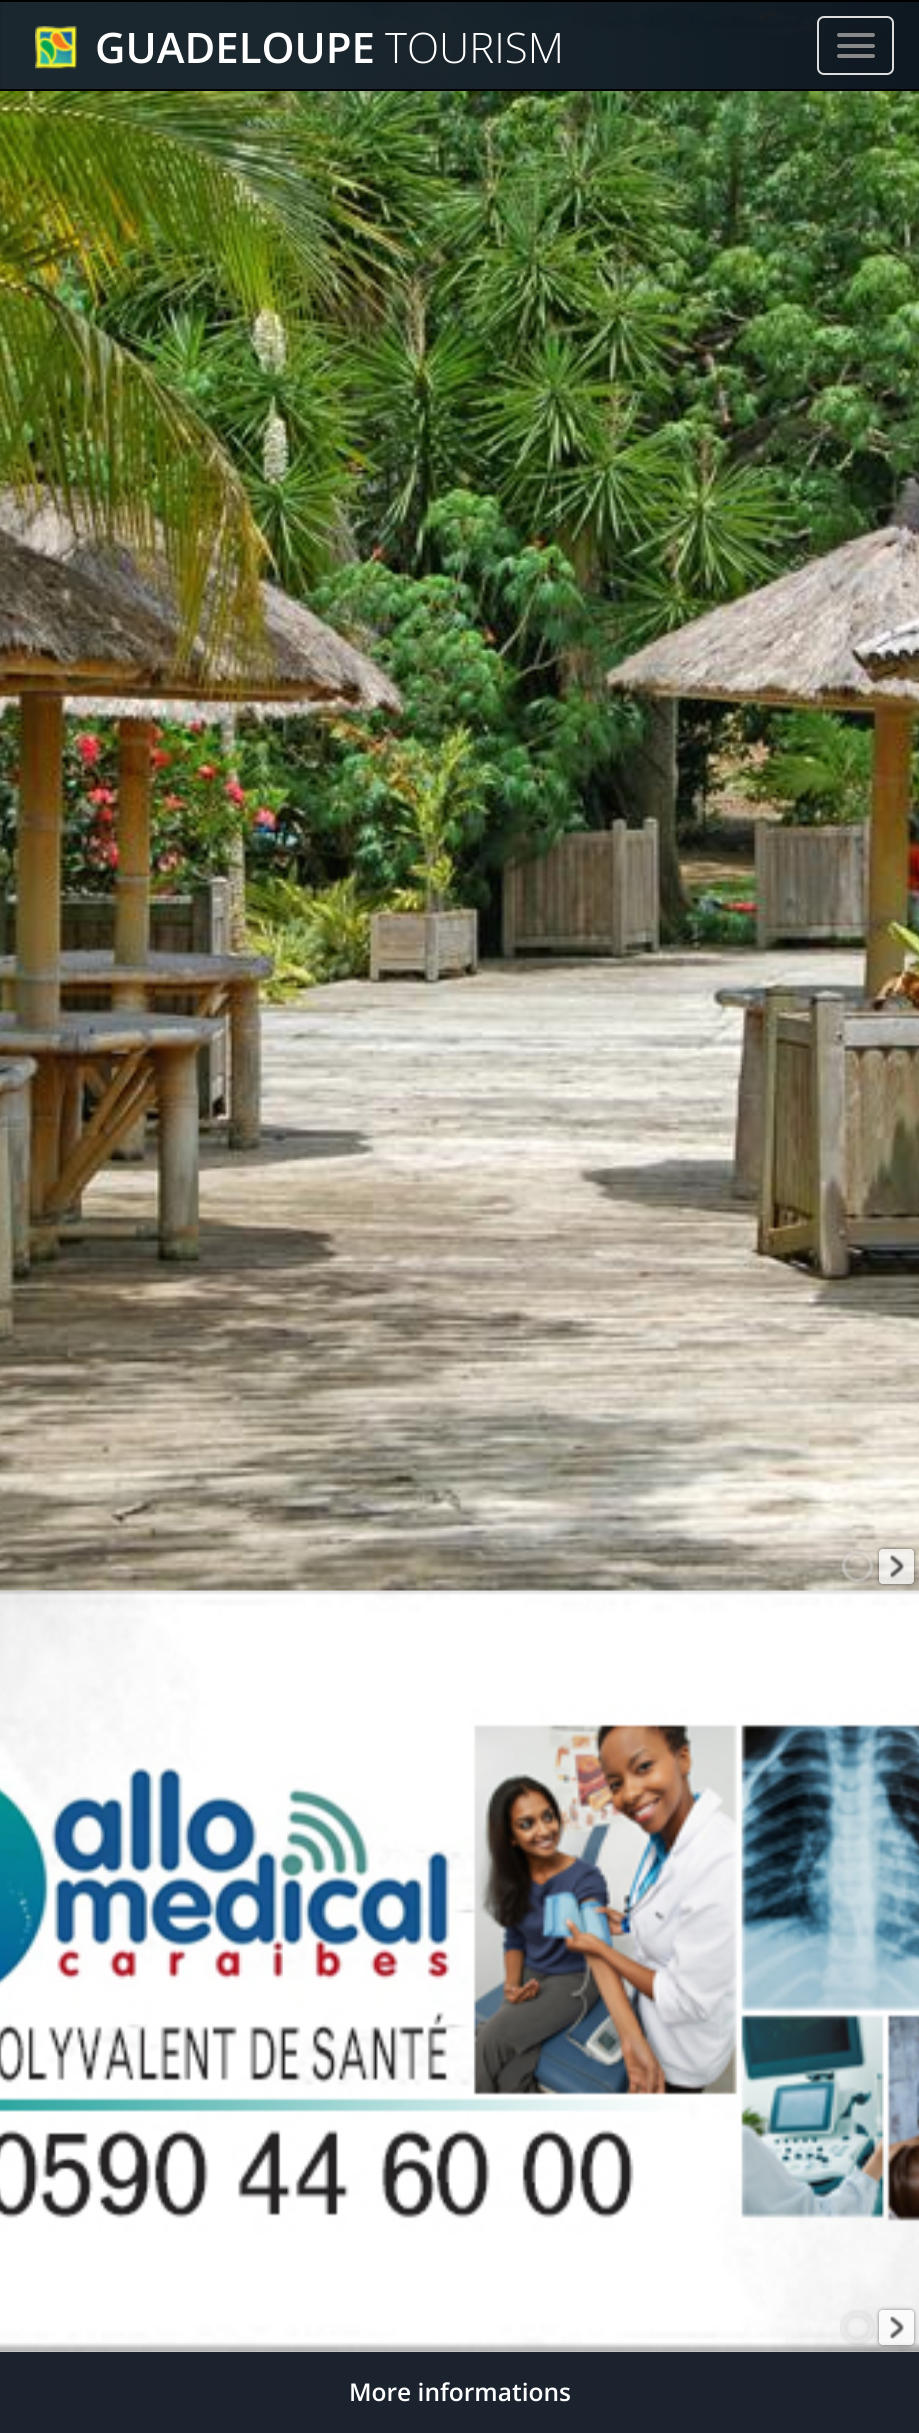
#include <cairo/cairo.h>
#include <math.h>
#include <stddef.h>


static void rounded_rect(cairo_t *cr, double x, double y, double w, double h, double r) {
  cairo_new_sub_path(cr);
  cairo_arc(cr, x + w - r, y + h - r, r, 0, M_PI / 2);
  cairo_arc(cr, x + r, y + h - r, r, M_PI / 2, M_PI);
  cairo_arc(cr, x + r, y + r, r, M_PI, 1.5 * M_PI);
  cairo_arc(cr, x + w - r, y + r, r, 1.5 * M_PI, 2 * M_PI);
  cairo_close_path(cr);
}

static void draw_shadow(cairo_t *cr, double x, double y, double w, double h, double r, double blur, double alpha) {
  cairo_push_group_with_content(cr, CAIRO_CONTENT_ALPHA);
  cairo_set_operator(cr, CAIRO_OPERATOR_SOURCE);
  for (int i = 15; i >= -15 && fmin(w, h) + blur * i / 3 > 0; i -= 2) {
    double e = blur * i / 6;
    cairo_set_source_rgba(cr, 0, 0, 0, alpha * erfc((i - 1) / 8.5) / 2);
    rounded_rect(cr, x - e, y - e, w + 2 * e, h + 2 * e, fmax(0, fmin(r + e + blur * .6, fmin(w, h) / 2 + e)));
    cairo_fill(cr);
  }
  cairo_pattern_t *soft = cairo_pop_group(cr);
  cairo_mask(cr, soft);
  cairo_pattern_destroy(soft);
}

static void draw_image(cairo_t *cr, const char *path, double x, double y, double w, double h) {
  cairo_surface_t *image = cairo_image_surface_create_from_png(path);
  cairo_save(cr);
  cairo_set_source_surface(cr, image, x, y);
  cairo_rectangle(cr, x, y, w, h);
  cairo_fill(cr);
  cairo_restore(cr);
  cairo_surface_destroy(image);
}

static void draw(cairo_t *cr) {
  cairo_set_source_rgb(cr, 1, 1, 1);
  cairo_paint(cr);
  cairo_set_source_rgb(cr, 6 / 255.0, 16 / 255.0, 25 / 255.0);
  cairo_rectangle(cr, 0, 2, 919, 87);
  cairo_fill(cr);
  draw_image(cr, "images/1.png", 0, 2, 919, 87);
  cairo_set_source_rgb(cr, 0, 0, 0);
  cairo_rectangle(cr, 0, 89, 919, 2);
  cairo_fill(cr);
  cairo_rectangle(cr, 0, 0, 919, 2);
  cairo_fill(cr);
  draw_image(cr, "images/2.png", 35, 26, 42, 43);
  rounded_rect(cr, 818, 17, 75, 57, 6);
  cairo_set_source_rgb(cr, 221 / 255.0, 221 / 255.0, 221 / 255.0);
  cairo_stroke(cr);
  cairo_set_source_rgb(cr, 136 / 255.0, 136 / 255.0, 136 / 255.0);
  rounded_rect(cr, 837, 33, 38, 4, 2);
  cairo_fill(cr);
  rounded_rect(cr, 837, 44, 38, 4, 2);
  cairo_fill(cr);
  rounded_rect(cr, 837, 54, 38, 4, 2);
  cairo_fill(cr);
  cairo_set_source_rgb(cr, 234 / 255.0, 234 / 255.0, 234 / 255.0);
  cairo_rectangle(cr, 0, 91, 919, 1500);
  cairo_fill(cr);
  draw_image(cr, "images/3.png", 0, 91, 919, 1500);
  draw_image(cr, "images/4.png", 840, 1549, 35, 35);
  cairo_save(cr);
  cairo_set_fill_rule(cr, CAIRO_FILL_RULE_EVEN_ODD);
  cairo_new_path(cr);
  cairo_move_to(cr, 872, 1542);
  cairo_line_to(cr, 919, 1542);
  cairo_line_to(cr, 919, 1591);
  cairo_line_to(cr, 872, 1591);
  cairo_close_path(cr);
  cairo_move_to(cr, 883, 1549);
  cairo_line_to(cr, 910, 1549);
  cairo_curve_to(cr, 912, 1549, 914, 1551, 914, 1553);
  cairo_line_to(cr, 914, 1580);
  cairo_curve_to(cr, 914, 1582, 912, 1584, 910, 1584);
  cairo_line_to(cr, 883, 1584);
  cairo_curve_to(cr, 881, 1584, 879, 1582, 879, 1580);
  cairo_line_to(cr, 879, 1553);
  cairo_curve_to(cr, 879, 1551, 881, 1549, 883, 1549);
  cairo_close_path(cr);
  cairo_clip(cr);
  cairo_set_source_rgb(cr, 0, 0, 0);
  draw_shadow(cr, 879, 1549, 35, 35, 4, 2, 0.49);
  cairo_restore(cr);
  cairo_set_source_rgba(cr, 1, 1, 1, 0.7);
  rounded_rect(cr, 879, 1549, 35, 35, 4);
  cairo_fill(cr);
  draw_image(cr, "images/5.png", 890, 1554, 14, 24);
  draw_image(cr, "images/6.png", 0, 1591, 919, 761);
  draw_image(cr, "images/7.png", 840, 2310, 35, 35);
  cairo_save(cr);
  cairo_set_fill_rule(cr, CAIRO_FILL_RULE_EVEN_ODD);
  cairo_new_path(cr);
  cairo_move_to(cr, 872, 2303);
  cairo_line_to(cr, 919, 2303);
  cairo_line_to(cr, 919, 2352);
  cairo_line_to(cr, 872, 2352);
  cairo_close_path(cr);
  cairo_move_to(cr, 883, 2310);
  cairo_line_to(cr, 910, 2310);
  cairo_curve_to(cr, 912, 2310, 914, 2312, 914, 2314);
  cairo_line_to(cr, 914, 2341);
  cairo_curve_to(cr, 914, 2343, 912, 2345, 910, 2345);
  cairo_line_to(cr, 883, 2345);
  cairo_curve_to(cr, 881, 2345, 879, 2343, 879, 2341);
  cairo_line_to(cr, 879, 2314);
  cairo_curve_to(cr, 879, 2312, 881, 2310, 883, 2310);
  cairo_close_path(cr);
  cairo_clip(cr);
  cairo_set_source_rgb(cr, 0, 0, 0);
  draw_shadow(cr, 879, 2310, 35, 35, 4, 2, 0.49);
  cairo_restore(cr);
  rounded_rect(cr, 879, 2310, 35, 35, 4);
  cairo_fill(cr);
  draw_image(cr, "images/8.png", 890, 2316, 14, 23);
  cairo_set_source_rgb(cr, 26 / 255.0, 35 / 255.0, 46 / 255.0);
  cairo_rectangle(cr, 0, 2352, 919, 81);
  cairo_fill(cr);
  cairo_select_font_face(cr, "Open Sans SemiBold", CAIRO_FONT_SLANT_NORMAL, CAIRO_FONT_WEIGHT_NORMAL);
  cairo_set_font_size(cr, 42);
  cairo_set_source_rgb(cr, 1, 1, 1);
  cairo_move_to(cr, 95, 63);
  cairo_show_text(cr, "GUADELOUPE");
  cairo_select_font_face(cr, "Open Sans Light", CAIRO_FONT_SLANT_NORMAL, CAIRO_FONT_WEIGHT_NORMAL);
  cairo_move_to(cr, 385, 63);
  cairo_show_text(cr, "TOURISM");
  cairo_select_font_face(cr, "Open Sans SemiBold", CAIRO_FONT_SLANT_NORMAL, CAIRO_FONT_WEIGHT_NORMAL);
  cairo_set_font_size(cr, 24.5);
  cairo_move_to(cr, 349, 2401);
  cairo_show_text(cr, "More informations");
}

int main(void) {
  cairo_surface_t *surface = cairo_image_surface_create(CAIRO_FORMAT_RGB24, 919, 2433);
  cairo_t *cr = cairo_create(surface);
  cairo_font_options_t *options = cairo_font_options_create();
  cairo_font_options_set_hint_metrics(options, CAIRO_HINT_METRICS_OFF);
  cairo_font_options_set_hint_style(options, CAIRO_HINT_STYLE_NONE);
  cairo_set_font_options(cr, options);
  cairo_set_miter_limit(cr, 4);
  draw(cr);
  cairo_surface_write_to_png(surface, "out.png");
  cairo_font_options_destroy(options);
  cairo_destroy(cr);
  cairo_surface_destroy(surface);
  return 0;
}
